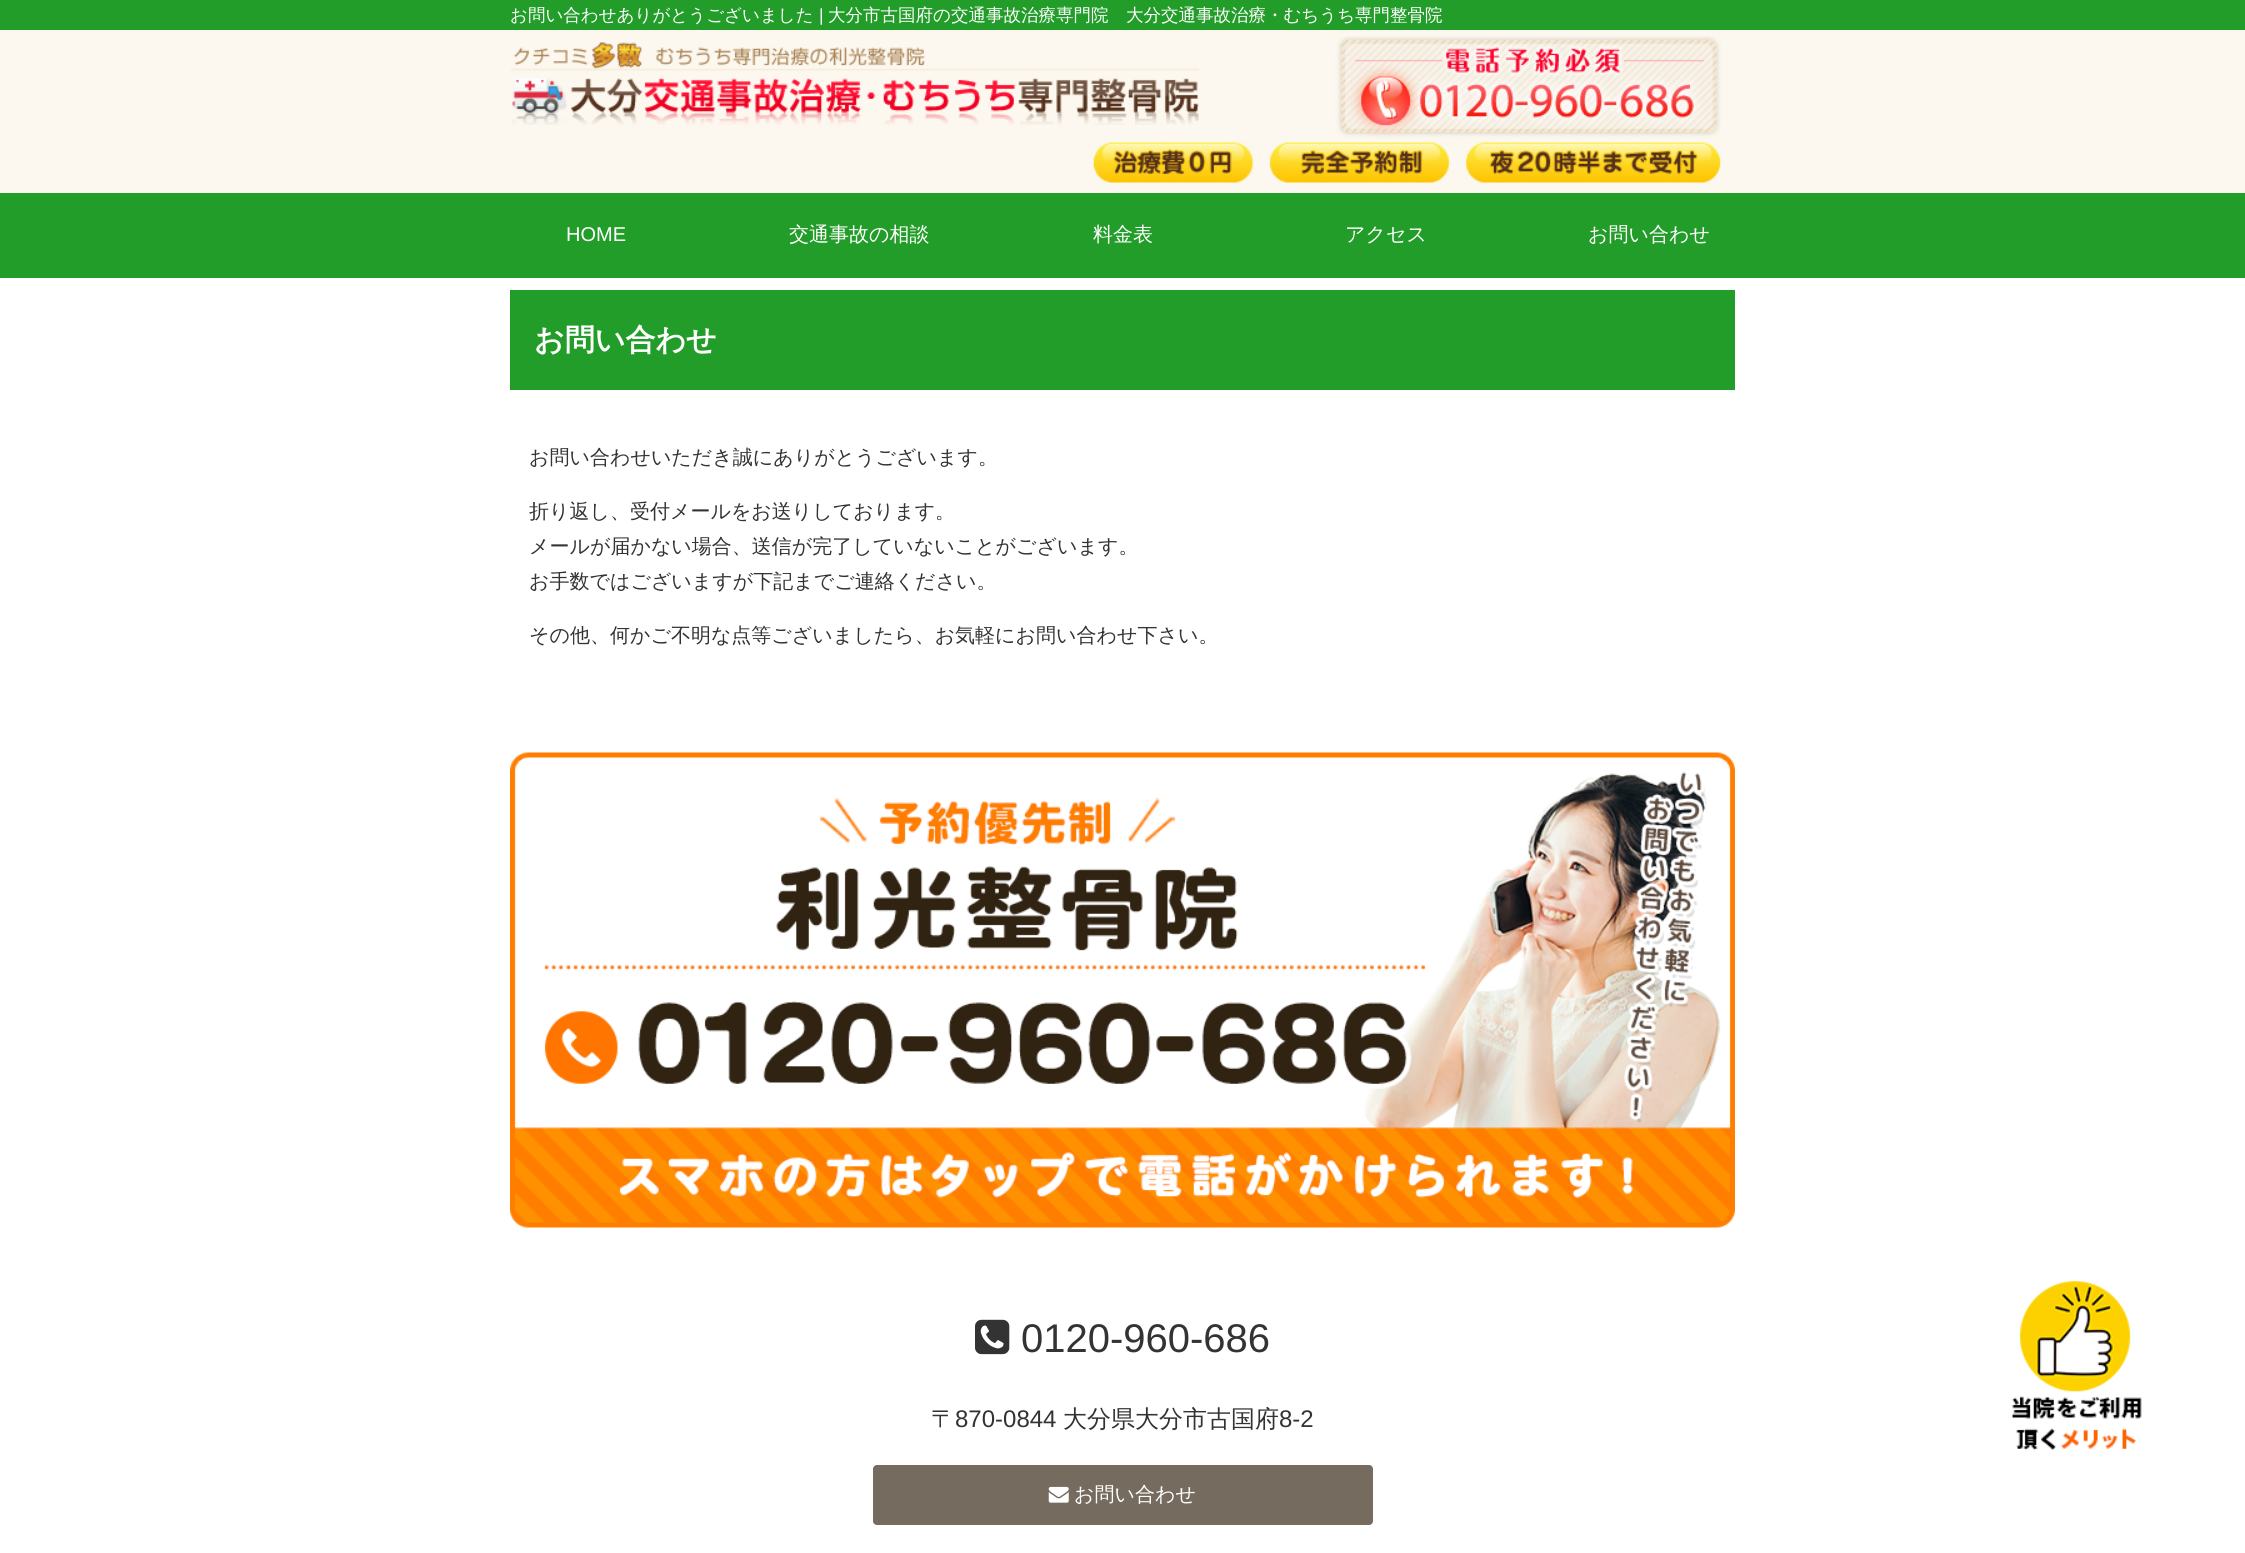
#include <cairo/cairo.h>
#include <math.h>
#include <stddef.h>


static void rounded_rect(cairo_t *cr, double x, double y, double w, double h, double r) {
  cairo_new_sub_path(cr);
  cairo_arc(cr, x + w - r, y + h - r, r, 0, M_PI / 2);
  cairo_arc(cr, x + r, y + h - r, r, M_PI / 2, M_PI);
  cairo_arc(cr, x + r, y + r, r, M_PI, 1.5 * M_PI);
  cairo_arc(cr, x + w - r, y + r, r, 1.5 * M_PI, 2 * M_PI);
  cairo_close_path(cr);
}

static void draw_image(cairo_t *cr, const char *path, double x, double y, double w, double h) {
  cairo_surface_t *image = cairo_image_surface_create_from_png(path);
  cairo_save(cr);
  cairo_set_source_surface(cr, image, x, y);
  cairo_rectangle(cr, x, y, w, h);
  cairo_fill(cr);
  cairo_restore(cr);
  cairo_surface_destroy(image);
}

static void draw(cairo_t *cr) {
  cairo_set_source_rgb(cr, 1, 1, 1);
  cairo_paint(cr);
  cairo_set_source_rgb(cr, 35 / 255.0, 157 / 255.0, 41 / 255.0);
  cairo_rectangle(cr, 0, 0, 2245, 30);
  cairo_fill(cr);
  cairo_set_source_rgb(cr, 252 / 255.0, 248 / 255.0, 239 / 255.0);
  cairo_rectangle(cr, 0, 30, 2245, 163);
  cairo_fill(cr);
  draw_image(cr, "images/2.png", 1090, 36, 638, 154);
  draw_image(cr, "images/1.png", 510, 42, 689, 83);
  cairo_set_source_rgb(cr, 35 / 255.0, 157 / 255.0, 41 / 255.0);
  cairo_rectangle(cr, 0, 193, 2245, 85);
  cairo_fill(cr);
  cairo_rectangle(cr, 510, 290, 1225, 100);
  cairo_fill(cr);
  draw_image(cr, "images/3.png", 510, 752, 1225, 476);
  draw_image(cr, "images/4.png", 975, 1319, 35, 36);
  cairo_set_source_rgb(cr, 117 / 255.0, 108 / 255.0, 95 / 255.0);
  rounded_rect(cr, 873, 1465, 500, 60, 4);
  cairo_fill(cr);
  draw_image(cr, "images/5.png", 1048, 1486, 21, 17);
  draw_image(cr, "images/6.png", 2012, 1281, 130, 170);
  cairo_select_font_face(cr, "WenQuanYi Zen Hei Medium", CAIRO_FONT_SLANT_NORMAL, CAIRO_FONT_WEIGHT_NORMAL);
  cairo_set_font_size(cr, 17.5);
  cairo_set_source_rgb(cr, 1, 1, 1);
  cairo_move_to(cr, 510, 21);
  cairo_show_text(cr, "お問い合わせありがとうございました");
  cairo_select_font_face(cr, "Liberation Sans", CAIRO_FONT_SLANT_NORMAL, CAIRO_FONT_WEIGHT_NORMAL);
  cairo_move_to(cr, 819, 21);
  cairo_show_text(cr, "|");
  cairo_select_font_face(cr, "WenQuanYi Zen Hei Medium", CAIRO_FONT_SLANT_NORMAL, CAIRO_FONT_WEIGHT_NORMAL);
  cairo_move_to(cr, 828, 21);
  cairo_show_text(cr, "大分市古国府の交通事故治療専門院　大分交通事故治療・むちうち専門整骨院");
  cairo_select_font_face(cr, "Liberation Sans", CAIRO_FONT_SLANT_NORMAL, CAIRO_FONT_WEIGHT_NORMAL);
  cairo_set_font_size(cr, 20);
  cairo_move_to(cr, 566, 241);
  cairo_show_text(cr, "HOME");
  cairo_select_font_face(cr, "WenQuanYi Zen Hei Medium", CAIRO_FONT_SLANT_NORMAL, CAIRO_FONT_WEIGHT_NORMAL);
  cairo_move_to(cr, 789, 241);
  cairo_show_text(cr, "交通事故の相談");
  cairo_move_to(cr, 1093, 241);
  cairo_show_text(cr, "料金表");
  cairo_move_to(cr, 1345, 241);
  cairo_show_text(cr, "アクセス");
  cairo_move_to(cr, 1588, 241);
  cairo_show_text(cr, "お問い合わせ");
  cairo_select_font_face(cr, "WenQuanYi Zen Hei", CAIRO_FONT_SLANT_NORMAL, CAIRO_FONT_WEIGHT_BOLD);
  cairo_set_font_size(cr, 30);
  cairo_move_to(cr, 534, 350);
  cairo_show_text(cr, "お問い合わせ");
  cairo_select_font_face(cr, "WenQuanYi Zen Hei Medium", CAIRO_FONT_SLANT_NORMAL, CAIRO_FONT_WEIGHT_NORMAL);
  cairo_set_font_size(cr, 20);
  cairo_set_source_rgb(cr, 51 / 255.0, 51 / 255.0, 51 / 255.0);
  cairo_move_to(cr, 529, 464);
  cairo_show_text(cr, "お問い合わせいただき誠にありがとうございます。");
  cairo_move_to(cr, 529, 518);
  cairo_show_text(cr, "折り返し、受付メールをお送りしております。");
  cairo_move_to(cr, 529, 553);
  cairo_show_text(cr, "メールが届かない場合、送信が完了していないことがございます。");
  cairo_move_to(cr, 529, 588);
  cairo_show_text(cr, "お手数ではございますが下記までご連絡ください。");
  cairo_move_to(cr, 529, 642);
  cairo_show_text(cr, "その他、何かご不明な点等ございましたら、お気軽にお問い合わせ下さい。");
  cairo_select_font_face(cr, "Liberation Sans", CAIRO_FONT_SLANT_NORMAL, CAIRO_FONT_WEIGHT_NORMAL);
  cairo_set_font_size(cr, 40);
  cairo_move_to(cr, 1021, 1352);
  cairo_show_text(cr, "0120-960-686");
  cairo_select_font_face(cr, "WenQuanYi Zen Hei Medium", CAIRO_FONT_SLANT_NORMAL, CAIRO_FONT_WEIGHT_NORMAL);
  cairo_set_font_size(cr, 24);
  cairo_move_to(cr, 931, 1427);
  cairo_show_text(cr, "〒");
  cairo_select_font_face(cr, "Liberation Sans", CAIRO_FONT_SLANT_NORMAL, CAIRO_FONT_WEIGHT_NORMAL);
  cairo_move_to(cr, 955, 1427);
  cairo_show_text(cr, "870-0844");
  cairo_select_font_face(cr, "WenQuanYi Zen Hei Medium", CAIRO_FONT_SLANT_NORMAL, CAIRO_FONT_WEIGHT_NORMAL);
  cairo_move_to(cr, 1063, 1427);
  cairo_show_text(cr, "大分県大分市古国府");
  cairo_select_font_face(cr, "Liberation Sans", CAIRO_FONT_SLANT_NORMAL, CAIRO_FONT_WEIGHT_NORMAL);
  cairo_move_to(cr, 1279, 1427);
  cairo_show_text(cr, "8-2");
  cairo_select_font_face(cr, "WenQuanYi Zen Hei Medium", CAIRO_FONT_SLANT_NORMAL, CAIRO_FONT_WEIGHT_NORMAL);
  cairo_set_font_size(cr, 20);
  cairo_set_source_rgb(cr, 1, 1, 1);
  cairo_move_to(cr, 1074, 1501);
  cairo_show_text(cr, "お問い合わせ");
}

int main(void) {
  cairo_surface_t *surface = cairo_image_surface_create(CAIRO_FORMAT_RGB24, 2245, 1553);
  cairo_t *cr = cairo_create(surface);
  cairo_font_options_t *options = cairo_font_options_create();
  cairo_font_options_set_hint_metrics(options, CAIRO_HINT_METRICS_OFF);
  cairo_font_options_set_hint_style(options, CAIRO_HINT_STYLE_NONE);
  cairo_set_font_options(cr, options);
  cairo_set_miter_limit(cr, 4);
  draw(cr);
  cairo_surface_write_to_png(surface, "out.png");
  cairo_font_options_destroy(options);
  cairo_destroy(cr);
  cairo_surface_destroy(surface);
  return 0;
}
